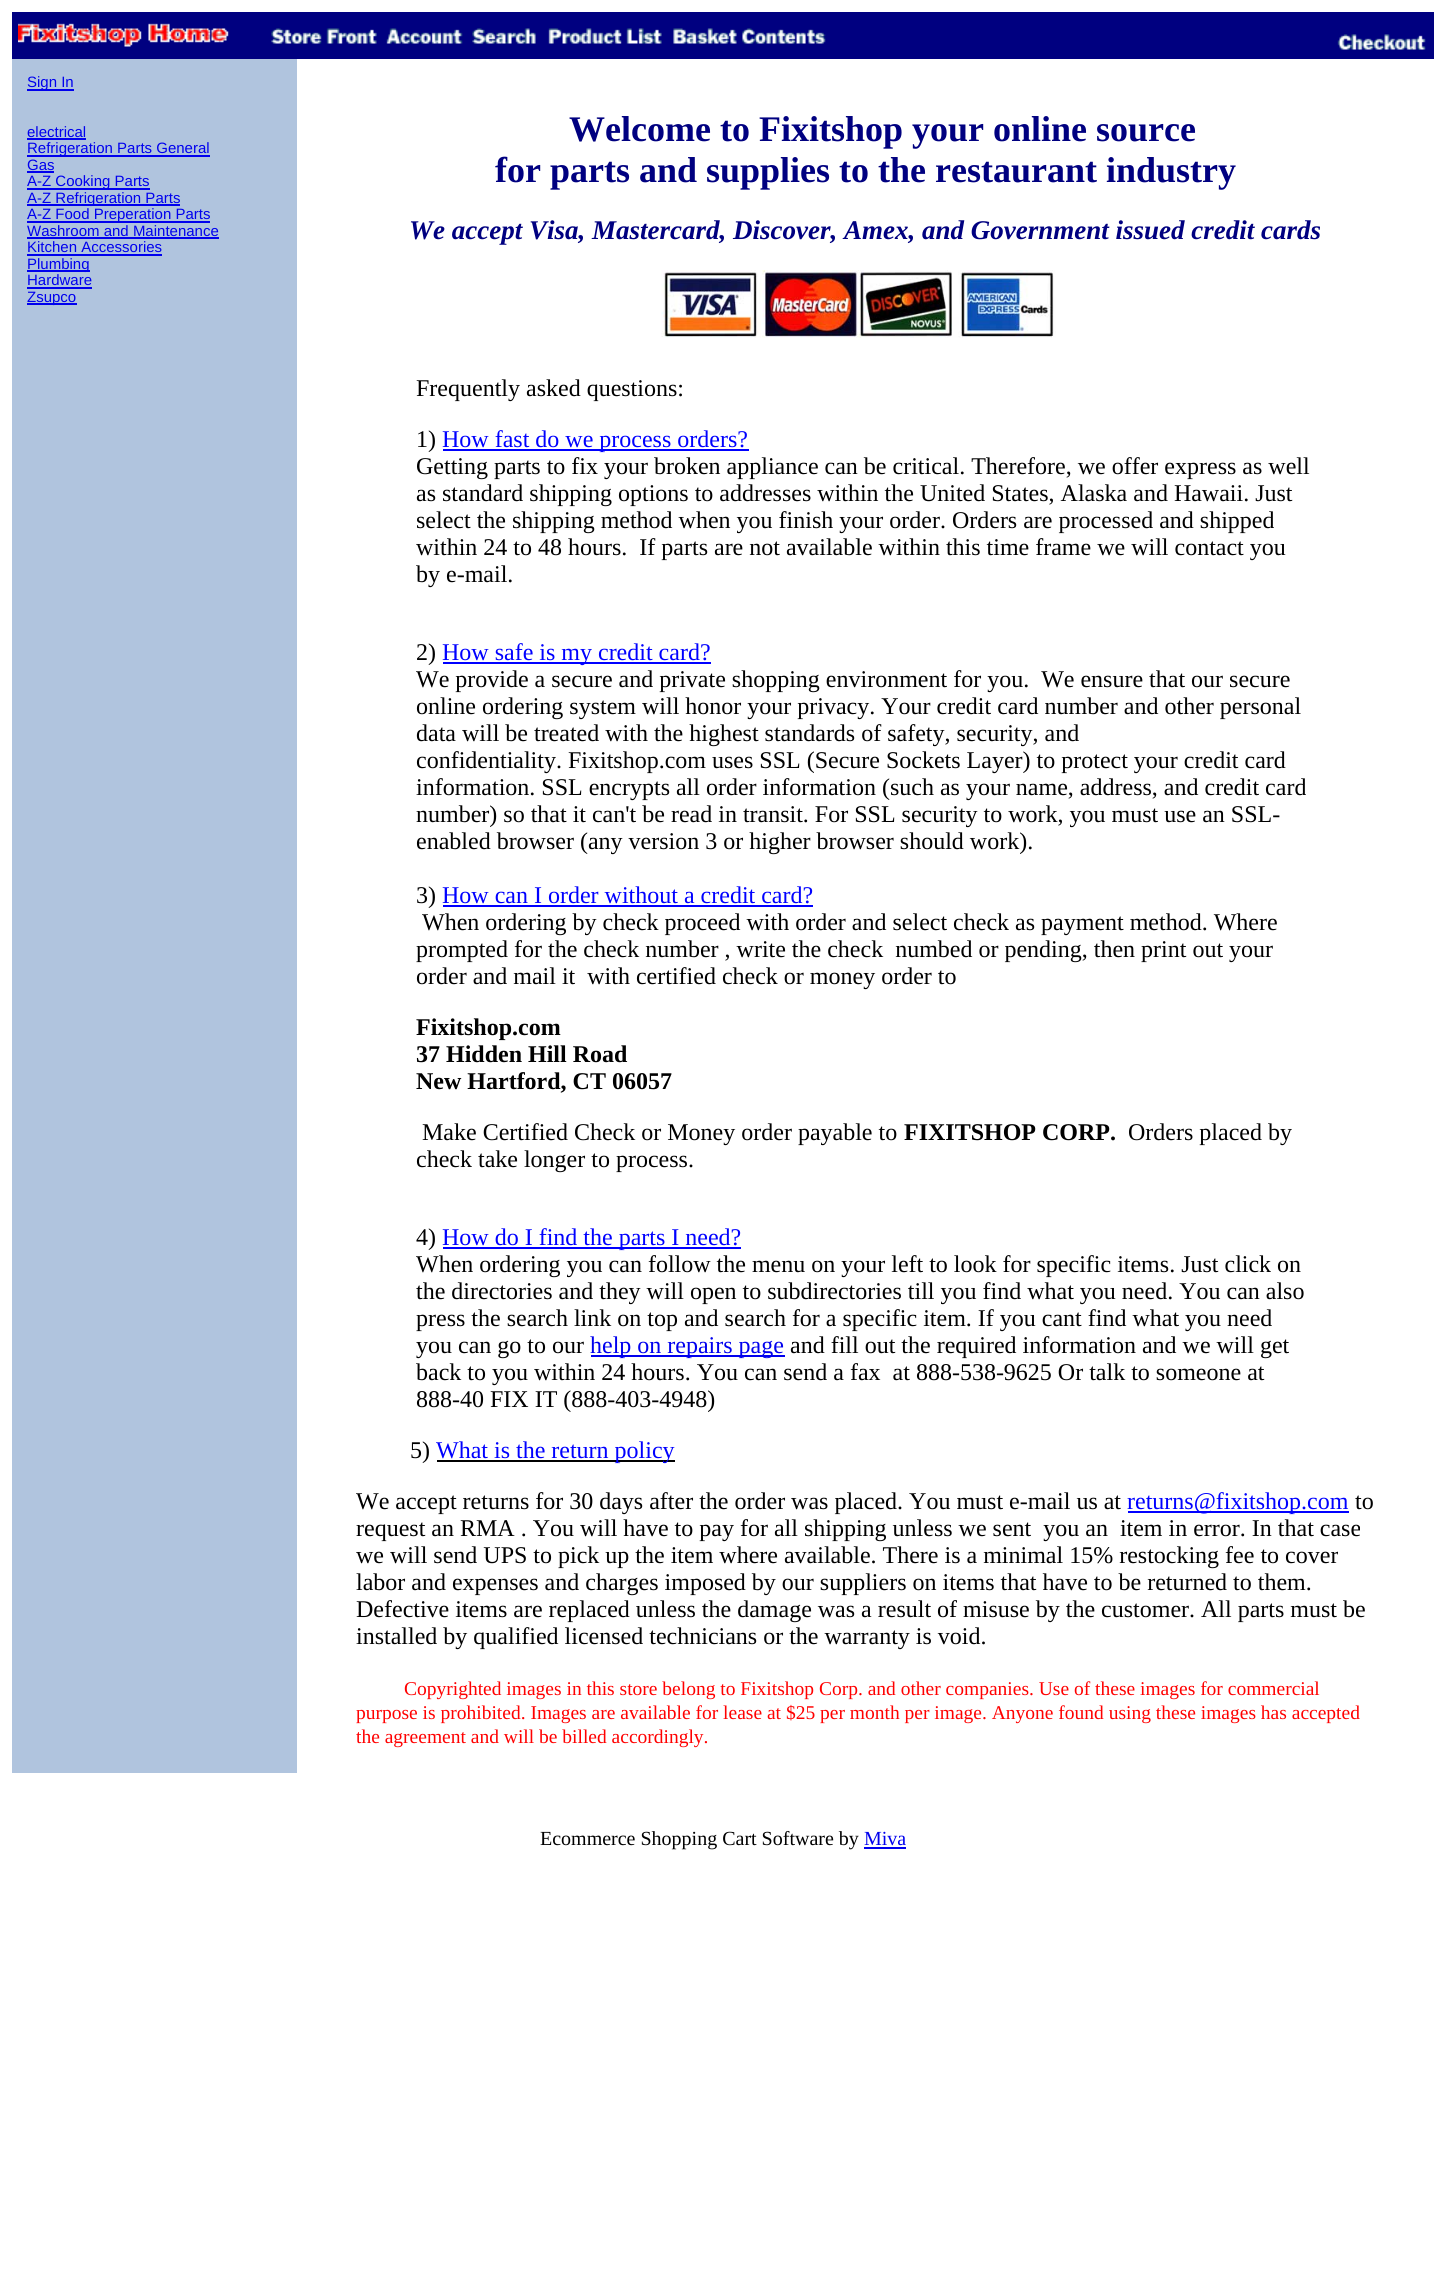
#include <cairo/cairo.h>
#include <math.h>
#include <stddef.h>


static void draw_image(cairo_t *cr, const char *path, double x, double y, double w, double h) {
  cairo_surface_t *image = cairo_image_surface_create_from_png(path);
  cairo_save(cr);
  cairo_set_source_surface(cr, image, x, y);
  cairo_rectangle(cr, x, y, w, h);
  cairo_fill(cr);
  cairo_restore(cr);
  cairo_surface_destroy(image);
}

static void draw(cairo_t *cr) {
  cairo_set_source_rgb(cr, 1, 1, 1);
  cairo_paint(cr);
  cairo_set_source_rgb(cr, 0, 0, 128 / 255.0);
  cairo_rectangle(cr, 12, 12, 1422, 47);
  cairo_fill(cr);
  draw_image(cr, "images/1.png", 18, 23, 211, 24);
  draw_image(cr, "images/2.png", 271, 28, 106, 16);
  draw_image(cr, "images/3.png", 386, 28, 77, 16);
  draw_image(cr, "images/4.png", 472, 28, 64, 16);
  draw_image(cr, "images/5.png", 548, 28, 114, 16);
  draw_image(cr, "images/6.png", 673, 28, 153, 16);
  draw_image(cr, "images/7.png", 1337, 34, 89, 16);
  cairo_set_source_rgb(cr, 176 / 255.0, 196 / 255.0, 222 / 255.0);
  cairo_rectangle(cr, 12, 59, 285, 1714);
  cairo_fill(cr);
  cairo_set_source_rgb(cr, 0, 0, 238 / 255.0);
  cairo_rectangle(cr, 27, 89, 47, 2);
  cairo_fill(cr);
  cairo_rectangle(cr, 27, 138, 59, 2);
  cairo_fill(cr);
  cairo_rectangle(cr, 27, 155, 183, 2);
  cairo_fill(cr);
  cairo_rectangle(cr, 27, 171, 27, 2);
  cairo_fill(cr);
  cairo_rectangle(cr, 27, 188, 123, 2);
  cairo_fill(cr);
  cairo_rectangle(cr, 27, 204, 153, 2);
  cairo_fill(cr);
  cairo_rectangle(cr, 27, 221, 183, 2);
  cairo_fill(cr);
  cairo_rectangle(cr, 27, 237, 192, 2);
  cairo_fill(cr);
  cairo_rectangle(cr, 27, 254, 135, 2);
  cairo_fill(cr);
  cairo_rectangle(cr, 27, 270, 63, 2);
  cairo_fill(cr);
  cairo_rectangle(cr, 27, 287, 65, 2);
  cairo_fill(cr);
  cairo_rectangle(cr, 27, 303, 50, 2);
  cairo_fill(cr);
  draw_image(cr, "images/8.png", 661, 270, 395, 68);
  cairo_set_source_rgb(cr, 0, 0, 1);
  cairo_rectangle(cr, 443, 449, 306, 2);
  cairo_fill(cr);
  cairo_rectangle(cr, 443, 662, 268, 2);
  cairo_fill(cr);
  cairo_rectangle(cr, 443, 905, 370, 2);
  cairo_fill(cr);
  cairo_rectangle(cr, 443, 1247, 298, 2);
  cairo_fill(cr);
  cairo_set_source_rgb(cr, 0, 0, 238 / 255.0);
  cairo_rectangle(cr, 591, 1355, 194, 2);
  cairo_fill(cr);
  cairo_set_source_rgb(cr, 0, 0, 0);
  cairo_rectangle(cr, 437, 1460, 238, 2);
  cairo_fill(cr);
  cairo_set_source_rgb(cr, 0, 0, 1);
  cairo_rectangle(cr, 1128, 1511, 221, 2);
  cairo_fill(cr);
  cairo_set_source_rgb(cr, 0, 0, 238 / 255.0);
  cairo_rectangle(cr, 864, 1847, 42, 2);
  cairo_fill(cr);
  cairo_select_font_face(cr, "Liberation Sans", CAIRO_FONT_SLANT_NORMAL, CAIRO_FONT_WEIGHT_NORMAL);
  cairo_set_font_size(cr, 15);
  cairo_move_to(cr, 27, 87);
  cairo_show_text(cr, "Sign In");
  cairo_move_to(cr, 27, 137);
  cairo_show_text(cr, "electrical");
  cairo_move_to(cr, 27, 153);
  cairo_show_text(cr, "Refrigeration Parts General");
  cairo_move_to(cr, 27, 170);
  cairo_show_text(cr, "Gas");
  cairo_move_to(cr, 27, 186);
  cairo_show_text(cr, "A-Z Cooking Parts");
  cairo_move_to(cr, 27, 203);
  cairo_show_text(cr, "A-Z Refrigeration Parts");
  cairo_move_to(cr, 27, 219);
  cairo_show_text(cr, "A-Z Food Preperation Parts");
  cairo_move_to(cr, 27, 236);
  cairo_show_text(cr, "Washroom and Maintenance");
  cairo_move_to(cr, 27, 252);
  cairo_show_text(cr, "Kitchen Accessories");
  cairo_move_to(cr, 27, 269);
  cairo_show_text(cr, "Plumbing");
  cairo_move_to(cr, 27, 285);
  cairo_show_text(cr, "Hardware");
  cairo_move_to(cr, 27, 302);
  cairo_show_text(cr, "Zsupco");
  cairo_select_font_face(cr, "Liberation Serif", CAIRO_FONT_SLANT_NORMAL, CAIRO_FONT_WEIGHT_BOLD);
  cairo_set_font_size(cr, 36);
  cairo_set_source_rgb(cr, 0, 0, 128 / 255.0);
  cairo_move_to(cr, 569, 141);
  cairo_show_text(cr, "Welcome to Fixitshop your online source");
  cairo_move_to(cr, 495, 182);
  cairo_show_text(cr, "for parts and supplies to the restaurant industry");
  cairo_select_font_face(cr, "Liberation Serif", CAIRO_FONT_SLANT_ITALIC, CAIRO_FONT_WEIGHT_BOLD);
  cairo_set_font_size(cr, 27);
  cairo_move_to(cr, 409, 239);
  cairo_show_text(cr, "We accept Visa, Mastercard, Discover, Amex, and Government issued credit cards");
  cairo_select_font_face(cr, "Liberation Serif", CAIRO_FONT_SLANT_NORMAL, CAIRO_FONT_WEIGHT_NORMAL);
  cairo_set_font_size(cr, 24);
  cairo_set_source_rgb(cr, 0, 0, 0);
  cairo_move_to(cr, 416, 396);
  cairo_show_text(cr, "Frequently asked questions:");
  cairo_move_to(cr, 416, 447);
  cairo_show_text(cr, "1)");
  cairo_set_source_rgb(cr, 0, 0, 1);
  cairo_move_to(cr, 442, 447);
  cairo_show_text(cr, "How fast do we process orders?");
  cairo_set_source_rgb(cr, 0, 0, 0);
  cairo_move_to(cr, 416, 474);
  cairo_show_text(cr, "Getting parts to fix your broken appliance can be critical. Therefore, we offer express as well");
  cairo_move_to(cr, 416, 501);
  cairo_show_text(cr, "as standard shipping options to addresses within the United States, Alaska and Hawaii. Just");
  cairo_move_to(cr, 416, 528);
  cairo_show_text(cr, "select the shipping method when you finish your order. Orders are processed and shipped");
  cairo_move_to(cr, 416, 555);
  cairo_show_text(cr, "within 24 to 48 hours.  If parts are not available within this time frame we will contact you");
  cairo_move_to(cr, 416, 582);
  cairo_show_text(cr, "by e-mail.");
  cairo_move_to(cr, 416, 660);
  cairo_show_text(cr, "2)");
  cairo_set_source_rgb(cr, 0, 0, 1);
  cairo_move_to(cr, 442, 660);
  cairo_show_text(cr, "How safe is my credit card?");
  cairo_set_source_rgb(cr, 0, 0, 0);
  cairo_move_to(cr, 416, 687);
  cairo_show_text(cr, "We provide a secure and private shopping environment for you.  We ensure that our secure");
  cairo_move_to(cr, 416, 714);
  cairo_show_text(cr, "online ordering system will honor your privacy. Your credit card number and other personal");
  cairo_move_to(cr, 416, 741);
  cairo_show_text(cr, "data will be treated with the highest standards of safety, security, and");
  cairo_move_to(cr, 416, 768);
  cairo_show_text(cr, "confidentiality. Fixitshop.com uses SSL (Secure Sockets Layer) to protect your credit card");
  cairo_move_to(cr, 416, 795);
  cairo_show_text(cr, "information. SSL encrypts all order information (such as your name, address, and credit card");
  cairo_move_to(cr, 416, 822);
  cairo_show_text(cr, "number) so that it can't be read in transit. For SSL security to work, you must use an SSL-");
  cairo_move_to(cr, 416, 849);
  cairo_show_text(cr, "enabled browser (any version 3 or higher browser should work).");
  cairo_move_to(cr, 416, 903);
  cairo_show_text(cr, "3)");
  cairo_set_source_rgb(cr, 0, 0, 1);
  cairo_move_to(cr, 442, 903);
  cairo_show_text(cr, "How can I order without a credit card?");
  cairo_set_source_rgb(cr, 0, 0, 0);
  cairo_move_to(cr, 422, 930);
  cairo_show_text(cr, "When ordering by check proceed with order and select check as payment method. Where");
  cairo_move_to(cr, 416, 957);
  cairo_show_text(cr, "prompted for the check number , write the check  numbed or pending, then print out your");
  cairo_move_to(cr, 416, 984);
  cairo_show_text(cr, "order and mail it  with certified check or money order to");
  cairo_select_font_face(cr, "Liberation Serif", CAIRO_FONT_SLANT_NORMAL, CAIRO_FONT_WEIGHT_BOLD);
  cairo_move_to(cr, 416, 1035);
  cairo_show_text(cr, "Fixitshop.com");
  cairo_move_to(cr, 416, 1062);
  cairo_show_text(cr, "37 Hidden Hill Road");
  cairo_move_to(cr, 416, 1089);
  cairo_show_text(cr, "New Hartford, CT 06057");
  cairo_select_font_face(cr, "Liberation Serif", CAIRO_FONT_SLANT_NORMAL, CAIRO_FONT_WEIGHT_NORMAL);
  cairo_move_to(cr, 422, 1140);
  cairo_show_text(cr, "Make Certified Check or Money order payable to");
  cairo_select_font_face(cr, "Liberation Serif", CAIRO_FONT_SLANT_NORMAL, CAIRO_FONT_WEIGHT_BOLD);
  cairo_move_to(cr, 904, 1140);
  cairo_show_text(cr, "FIXITSHOP CORP.");
  cairo_select_font_face(cr, "Liberation Serif", CAIRO_FONT_SLANT_NORMAL, CAIRO_FONT_WEIGHT_NORMAL);
  cairo_move_to(cr, 1128, 1140);
  cairo_show_text(cr, "Orders placed by");
  cairo_move_to(cr, 416, 1167);
  cairo_show_text(cr, "check take longer to process.");
  cairo_move_to(cr, 416, 1245);
  cairo_show_text(cr, "4)");
  cairo_set_source_rgb(cr, 0, 0, 1);
  cairo_move_to(cr, 442, 1245);
  cairo_show_text(cr, "How do I find the parts I need?");
  cairo_set_source_rgb(cr, 0, 0, 0);
  cairo_move_to(cr, 416, 1272);
  cairo_show_text(cr, "When ordering you can follow the menu on your left to look for specific items. Just click on");
  cairo_move_to(cr, 416, 1299);
  cairo_show_text(cr, "the directories and they will open to subdirectories till you find what you need. You can also");
  cairo_move_to(cr, 416, 1326);
  cairo_show_text(cr, "press the search link on top and search for a specific item. If you cant find what you need");
  cairo_move_to(cr, 416, 1353);
  cairo_show_text(cr, "you can go to our");
  cairo_set_source_rgb(cr, 0, 0, 238 / 255.0);
  cairo_move_to(cr, 590, 1353);
  cairo_show_text(cr, "help on repairs page");
  cairo_set_source_rgb(cr, 0, 0, 0);
  cairo_move_to(cr, 790, 1353);
  cairo_show_text(cr, "and fill out the required information and we will get");
  cairo_move_to(cr, 416, 1380);
  cairo_show_text(cr, "back to you within 24 hours. You can send a fax  at 888-538-9625 Or talk to someone at");
  cairo_move_to(cr, 416, 1407);
  cairo_show_text(cr, "888-40 FIX IT (888-403-4948)");
  cairo_move_to(cr, 410, 1458);
  cairo_show_text(cr, "5)");
  cairo_set_source_rgb(cr, 0, 0, 1);
  cairo_move_to(cr, 436, 1458);
  cairo_show_text(cr, "What is the return policy");
  cairo_set_source_rgb(cr, 0, 0, 0);
  cairo_move_to(cr, 356, 1509);
  cairo_show_text(cr, "We accept returns for 30 days after the order was placed. You must e-mail us at");
  cairo_set_source_rgb(cr, 0, 0, 1);
  cairo_move_to(cr, 1127, 1509);
  cairo_show_text(cr, "returns@fixitshop.com");
  cairo_set_source_rgb(cr, 0, 0, 0);
  cairo_move_to(cr, 1355, 1509);
  cairo_show_text(cr, "to");
  cairo_move_to(cr, 356, 1536);
  cairo_show_text(cr, "request an RMA . You will have to pay for all shipping unless we sent  you an  item in error. In that case");
  cairo_move_to(cr, 356, 1563);
  cairo_show_text(cr, "we will send UPS to pick up the item where available. There is a minimal 15% restocking fee to cover");
  cairo_move_to(cr, 356, 1590);
  cairo_show_text(cr, "labor and expenses and charges imposed by our suppliers on items that have to be returned to them.");
  cairo_move_to(cr, 356, 1617);
  cairo_show_text(cr, "Defective items are replaced unless the damage was a result of misuse by the customer. All parts must be");
  cairo_move_to(cr, 356, 1644);
  cairo_show_text(cr, "installed by qualified licensed technicians or the warranty is void.");
  cairo_set_font_size(cr, 19.5);
  cairo_set_source_rgb(cr, 1, 0, 0);
  cairo_move_to(cr, 404, 1695);
  cairo_show_text(cr, "Copyrighted images in this store belong to Fixitshop Corp. and other companies. Use of these images for commercial");
  cairo_move_to(cr, 356, 1719);
  cairo_show_text(cr, "purpose is prohibited. Images are available for lease at $25 per month per image. Anyone found using these images has accepted");
  cairo_move_to(cr, 356, 1743);
  cairo_show_text(cr, "the agreement and will be billed accordingly.");
  cairo_set_font_size(cr, 20);
  cairo_set_source_rgb(cr, 0, 0, 0);
  cairo_move_to(cr, 540, 1845);
  cairo_show_text(cr, "Ecommerce Shopping Cart Software by");
  cairo_set_source_rgb(cr, 0, 0, 238 / 255.0);
  cairo_move_to(cr, 864, 1845);
  cairo_show_text(cr, "Miva");
}

int main(void) {
  cairo_surface_t *surface = cairo_image_surface_create(CAIRO_FORMAT_RGB24, 1446, 2285);
  cairo_t *cr = cairo_create(surface);
  cairo_font_options_t *options = cairo_font_options_create();
  cairo_font_options_set_hint_metrics(options, CAIRO_HINT_METRICS_OFF);
  cairo_font_options_set_hint_style(options, CAIRO_HINT_STYLE_NONE);
  cairo_set_font_options(cr, options);
  cairo_set_miter_limit(cr, 4);
  draw(cr);
  cairo_surface_write_to_png(surface, "out.png");
  cairo_font_options_destroy(options);
  cairo_destroy(cr);
  cairo_surface_destroy(surface);
  return 0;
}
